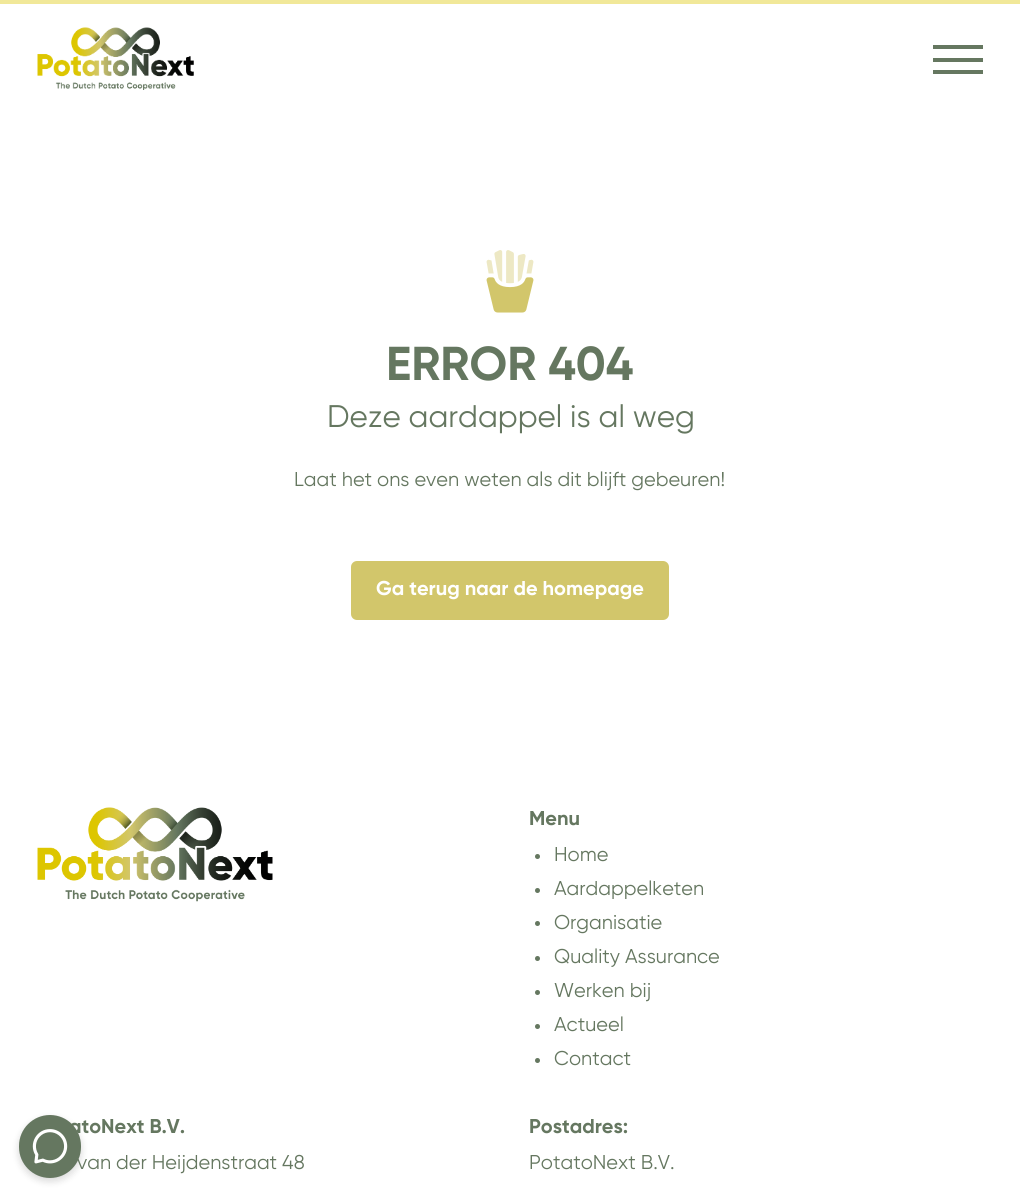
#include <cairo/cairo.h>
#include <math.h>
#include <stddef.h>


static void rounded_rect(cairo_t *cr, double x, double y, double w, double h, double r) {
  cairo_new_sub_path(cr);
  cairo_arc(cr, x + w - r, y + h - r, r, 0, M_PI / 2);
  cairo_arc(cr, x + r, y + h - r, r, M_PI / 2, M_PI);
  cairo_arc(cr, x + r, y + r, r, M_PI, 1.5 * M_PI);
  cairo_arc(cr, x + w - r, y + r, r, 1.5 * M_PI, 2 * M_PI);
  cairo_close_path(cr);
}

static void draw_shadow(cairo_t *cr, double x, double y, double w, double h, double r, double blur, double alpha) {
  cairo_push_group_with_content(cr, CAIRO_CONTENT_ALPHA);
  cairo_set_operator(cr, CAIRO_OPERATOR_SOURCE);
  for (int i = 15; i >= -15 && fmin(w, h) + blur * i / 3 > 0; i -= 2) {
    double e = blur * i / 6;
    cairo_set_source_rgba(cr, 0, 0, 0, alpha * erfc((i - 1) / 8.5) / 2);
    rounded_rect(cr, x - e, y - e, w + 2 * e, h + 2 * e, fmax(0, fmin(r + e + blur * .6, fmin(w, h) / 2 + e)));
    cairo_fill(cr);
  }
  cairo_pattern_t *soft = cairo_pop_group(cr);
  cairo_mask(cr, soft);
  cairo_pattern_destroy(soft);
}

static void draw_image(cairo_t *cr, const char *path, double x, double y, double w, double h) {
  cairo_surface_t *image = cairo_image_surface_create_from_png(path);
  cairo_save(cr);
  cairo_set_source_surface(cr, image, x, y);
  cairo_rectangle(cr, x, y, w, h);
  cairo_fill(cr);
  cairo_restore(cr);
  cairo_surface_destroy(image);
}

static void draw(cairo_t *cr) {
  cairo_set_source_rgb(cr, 1, 1, 1);
  cairo_paint(cr);
  cairo_set_source_rgb(cr, 241 / 255.0, 232 / 255.0, 153 / 255.0);
  cairo_rectangle(cr, 0, 0, 1020, 4);
  cairo_fill(cr);
  draw_image(cr, "images/1.png", 37, 27, 157, 63);
  cairo_set_source_rgb(cr, 101 / 255.0, 119 / 255.0, 96 / 255.0);
  cairo_rectangle(cr, 933, 58, 50, 4);
  cairo_fill(cr);
  cairo_rectangle(cr, 933, 45, 50, 4);
  cairo_fill(cr);
  cairo_rectangle(cr, 933, 70, 50, 4);
  cairo_fill(cr);
  cairo_set_source_rgb(cr, 0, 0, 0);
  draw_shadow(cr, 19, 1119, 62, 62, 31, 4, 0.16);
  cairo_set_source_rgb(cr, 101 / 255.0, 119 / 255.0, 96 / 255.0);
  rounded_rect(cr, 19, 1115, 62, 63, 31);
  cairo_fill(cr);
  draw_image(cr, "images/2.png", 32, 1129, 36, 35);
  draw_image(cr, "images/3.png", 486, 250, 48, 63);
  cairo_set_source_rgb(cr, 210 / 255.0, 198 / 255.0, 107 / 255.0);
  rounded_rect(cr, 351, 561, 318, 59, 6);
  cairo_fill(cr);
  draw_image(cr, "images/4.png", 37, 807, 236, 95);
  cairo_set_source_rgb(cr, 101 / 255.0, 119 / 255.0, 96 / 255.0);
  cairo_arc(cr, 537.5, 856.5, 2.5, 0, 2 * M_PI);
  cairo_fill(cr);
  cairo_arc(cr, 537.5, 890.5, 2.5, 0, 2 * M_PI);
  cairo_fill(cr);
  cairo_arc(cr, 537.5, 923.5, 2.5, 0, 2 * M_PI);
  cairo_fill(cr);
  cairo_arc(cr, 537.5, 958.5, 2.5, 0, 2 * M_PI);
  cairo_fill(cr);
  cairo_arc(cr, 537.5, 992.5, 2.5, 0, 2 * M_PI);
  cairo_fill(cr);
  cairo_arc(cr, 537.5, 1026.5, 2.5, 0, 2 * M_PI);
  cairo_fill(cr);
  cairo_arc(cr, 537.5, 1060.5, 2.5, 0, 2 * M_PI);
  cairo_fill(cr);
  cairo_select_font_face(cr, "Gilroy", CAIRO_FONT_SLANT_NORMAL, CAIRO_FONT_WEIGHT_BOLD);
  cairo_set_font_size(cr, 47.5);
  cairo_move_to(cr, 386, 380);
  cairo_show_text(cr, "ERROR 404");
  cairo_select_font_face(cr, "Gilroy", CAIRO_FONT_SLANT_NORMAL, CAIRO_FONT_WEIGHT_NORMAL);
  cairo_set_font_size(cr, 31.25);
  cairo_move_to(cr, 327, 427);
  cairo_show_text(cr, "Deze aardappel is al weg");
  cairo_set_font_size(cr, 20);
  cairo_move_to(cr, 294, 486);
  cairo_show_text(cr, "Laat het ons even weten als dit blijft gebeuren!");
  cairo_select_font_face(cr, "Gilroy", CAIRO_FONT_SLANT_NORMAL, CAIRO_FONT_WEIGHT_BOLD);
  cairo_set_source_rgb(cr, 1, 1, 1);
  cairo_move_to(cr, 376, 595);
  cairo_show_text(cr, "Ga terug naar de homepage");
  cairo_set_source_rgb(cr, 101 / 255.0, 119 / 255.0, 96 / 255.0);
  cairo_move_to(cr, 529, 825);
  cairo_show_text(cr, "Menu");
  cairo_select_font_face(cr, "Gilroy", CAIRO_FONT_SLANT_NORMAL, CAIRO_FONT_WEIGHT_NORMAL);
  cairo_move_to(cr, 554, 861);
  cairo_show_text(cr, "Home");
  cairo_move_to(cr, 554, 895);
  cairo_show_text(cr, "Aardappelketen");
  cairo_move_to(cr, 554, 929);
  cairo_show_text(cr, "Organisatie");
  cairo_move_to(cr, 554, 963);
  cairo_show_text(cr, "Quality Assurance");
  cairo_move_to(cr, 554, 997);
  cairo_show_text(cr, "Werken bij");
  cairo_move_to(cr, 554, 1031);
  cairo_show_text(cr, "Actueel");
  cairo_move_to(cr, 554, 1065);
  cairo_show_text(cr, "Contact");
  cairo_select_font_face(cr, "Gilroy", CAIRO_FONT_SLANT_NORMAL, CAIRO_FONT_WEIGHT_BOLD);
  cairo_move_to(cr, 69, 1133);
  cairo_show_text(cr, "atoNext B.V.");
  cairo_select_font_face(cr, "Gilroy", CAIRO_FONT_SLANT_NORMAL, CAIRO_FONT_WEIGHT_NORMAL);
  cairo_move_to(cr, 77, 1169);
  cairo_show_text(cr, "van der Heijdenstraat 48");
  cairo_select_font_face(cr, "Gilroy", CAIRO_FONT_SLANT_NORMAL, CAIRO_FONT_WEIGHT_BOLD);
  cairo_move_to(cr, 529, 1133);
  cairo_show_text(cr, "Postadres:");
  cairo_select_font_face(cr, "Gilroy", CAIRO_FONT_SLANT_NORMAL, CAIRO_FONT_WEIGHT_NORMAL);
  cairo_move_to(cr, 529, 1169);
  cairo_show_text(cr, "PotatoNext B.V.");
}

int main(void) {
  cairo_surface_t *surface = cairo_image_surface_create(CAIRO_FORMAT_RGB24, 1020, 1196);
  cairo_t *cr = cairo_create(surface);
  cairo_font_options_t *options = cairo_font_options_create();
  cairo_font_options_set_hint_metrics(options, CAIRO_HINT_METRICS_OFF);
  cairo_font_options_set_hint_style(options, CAIRO_HINT_STYLE_NONE);
  cairo_set_font_options(cr, options);
  cairo_set_miter_limit(cr, 4);
  draw(cr);
  cairo_surface_write_to_png(surface, "out.png");
  cairo_font_options_destroy(options);
  cairo_destroy(cr);
  cairo_surface_destroy(surface);
  return 0;
}
